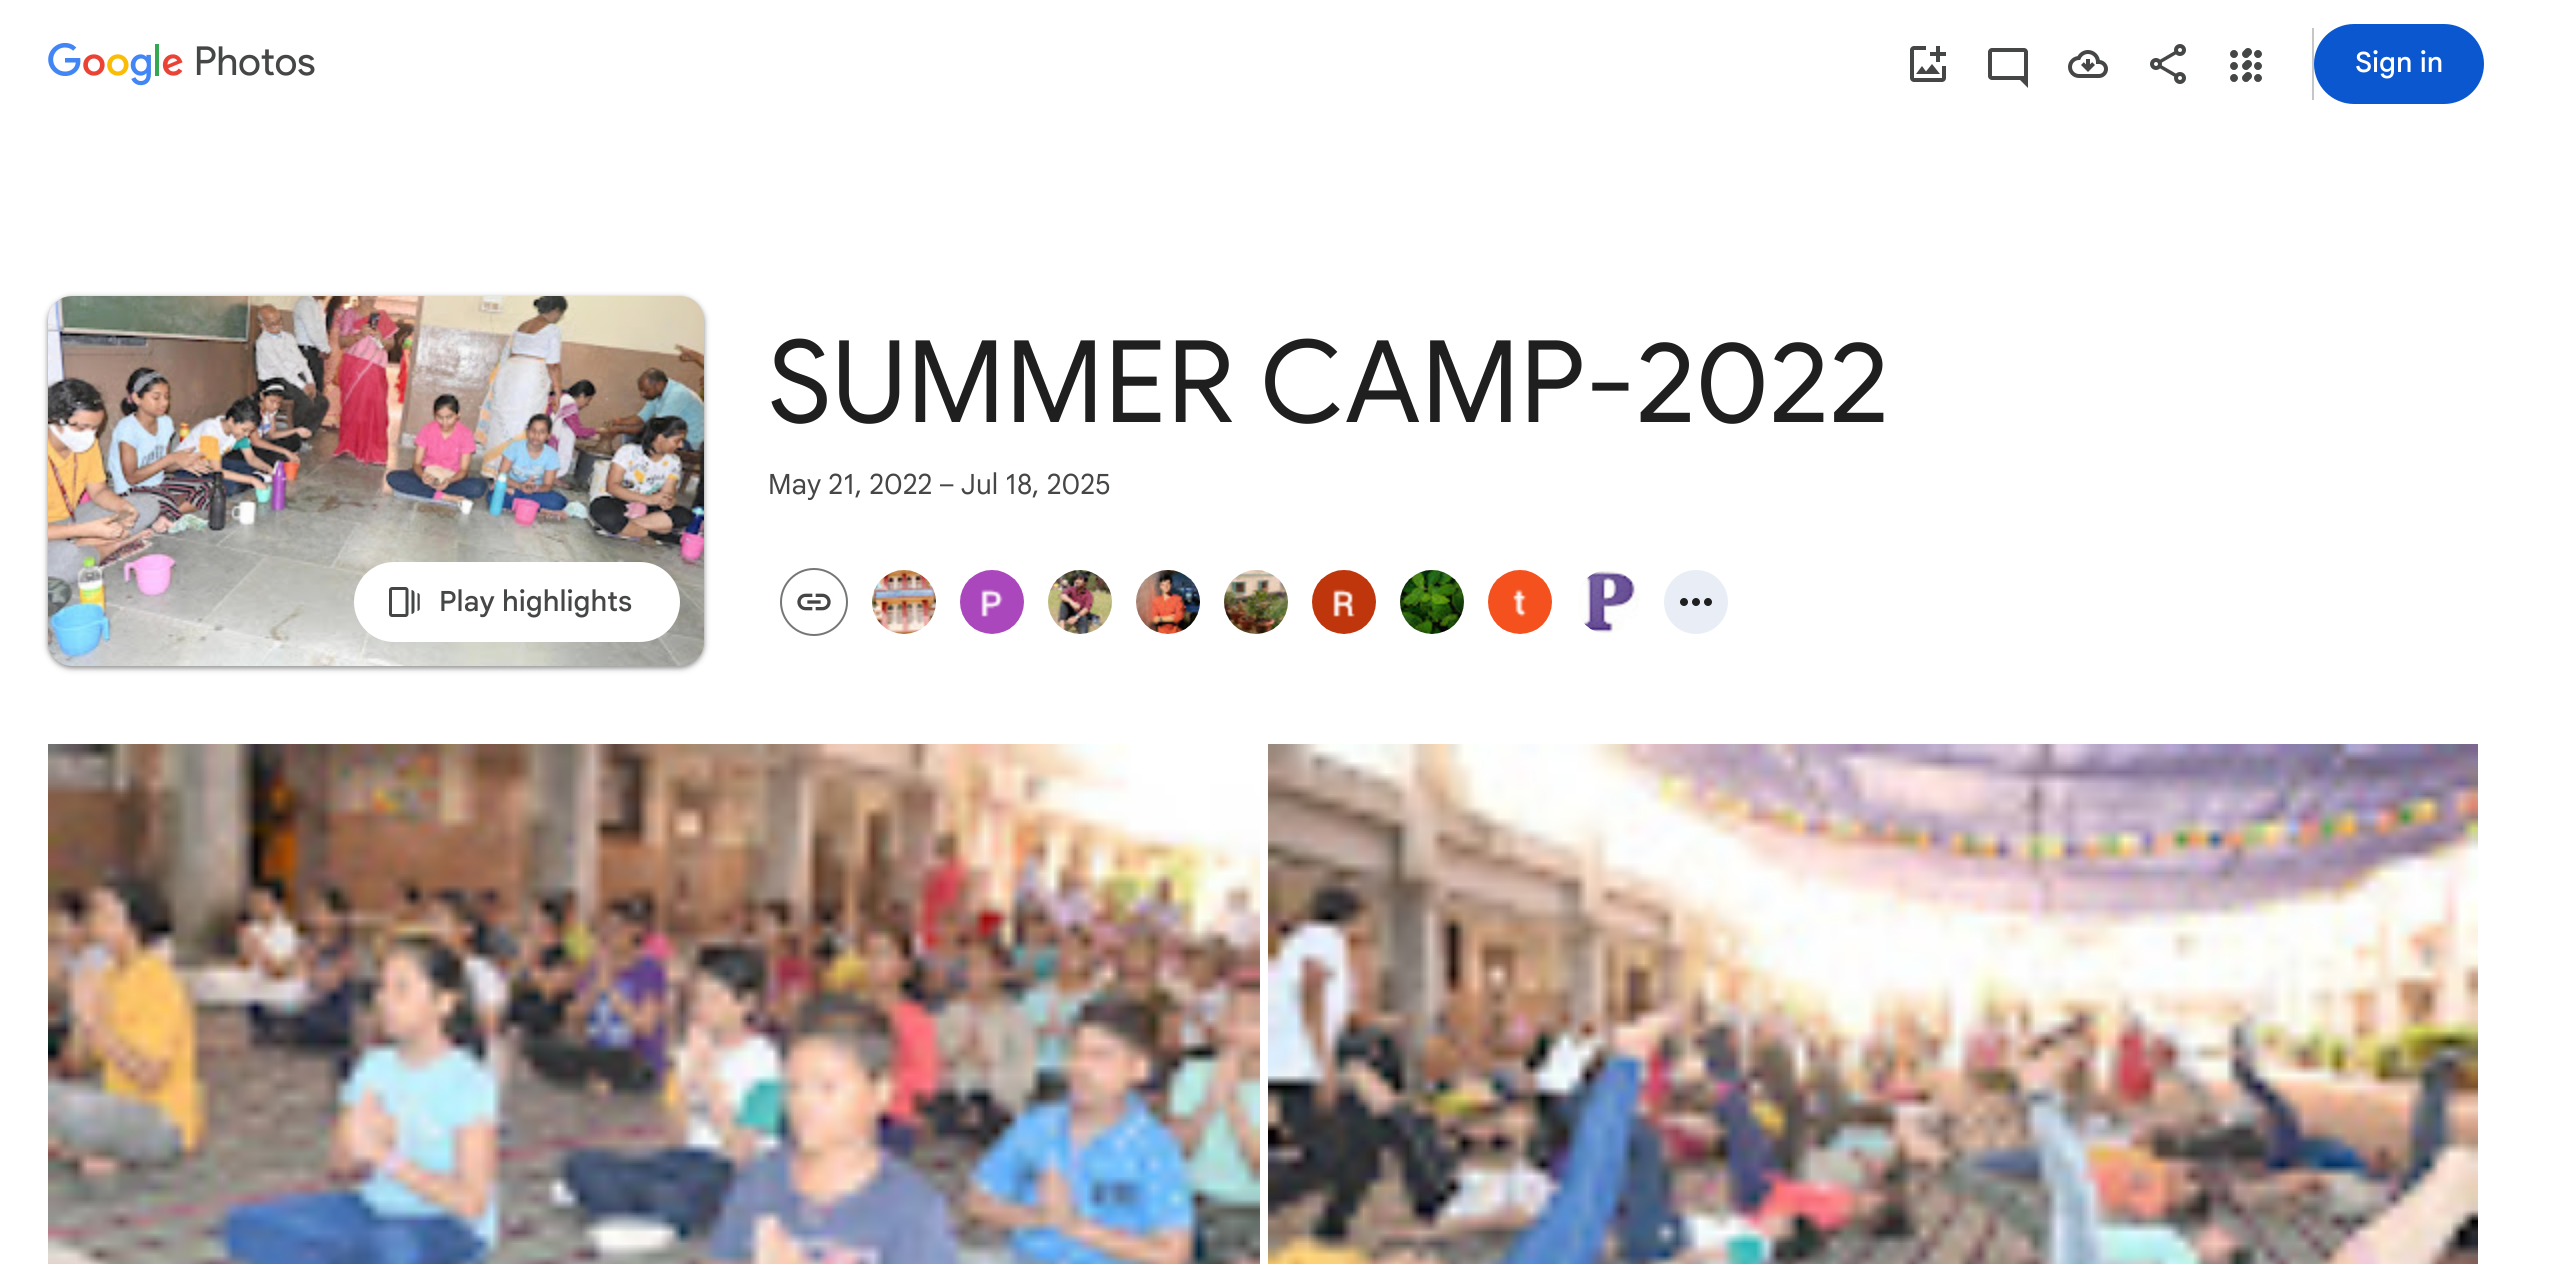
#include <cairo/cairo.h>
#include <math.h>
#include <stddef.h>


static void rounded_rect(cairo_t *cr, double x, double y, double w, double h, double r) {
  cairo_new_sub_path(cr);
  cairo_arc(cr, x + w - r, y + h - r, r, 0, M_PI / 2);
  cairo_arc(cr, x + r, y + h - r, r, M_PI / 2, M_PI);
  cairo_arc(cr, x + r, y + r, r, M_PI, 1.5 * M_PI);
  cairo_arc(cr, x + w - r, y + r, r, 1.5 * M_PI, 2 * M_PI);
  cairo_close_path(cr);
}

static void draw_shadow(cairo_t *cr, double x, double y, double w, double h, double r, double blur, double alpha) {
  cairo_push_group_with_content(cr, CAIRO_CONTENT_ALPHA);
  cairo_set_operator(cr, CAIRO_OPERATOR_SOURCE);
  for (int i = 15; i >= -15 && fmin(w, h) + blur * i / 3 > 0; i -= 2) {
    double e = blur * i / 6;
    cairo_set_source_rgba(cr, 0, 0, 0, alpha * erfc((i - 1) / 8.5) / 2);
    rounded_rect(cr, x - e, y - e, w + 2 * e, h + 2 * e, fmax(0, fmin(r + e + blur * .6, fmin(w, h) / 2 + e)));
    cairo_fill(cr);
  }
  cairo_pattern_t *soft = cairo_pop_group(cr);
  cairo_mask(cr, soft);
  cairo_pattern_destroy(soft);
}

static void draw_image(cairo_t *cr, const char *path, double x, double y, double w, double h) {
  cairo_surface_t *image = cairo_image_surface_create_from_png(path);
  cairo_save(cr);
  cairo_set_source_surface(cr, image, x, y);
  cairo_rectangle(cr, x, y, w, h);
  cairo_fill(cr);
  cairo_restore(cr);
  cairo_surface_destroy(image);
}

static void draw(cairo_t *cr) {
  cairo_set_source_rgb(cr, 1, 1, 1);
  cairo_paint(cr);
  draw_image(cr, "images/1.png", 48, 42, 135, 44);
  draw_image(cr, "images/2.png", 1910, 46, 36, 36);
  draw_image(cr, "images/3.png", 1988, 48, 40, 40);
  draw_image(cr, "images/4.png", 2068, 50, 40, 28);
  draw_image(cr, "images/5.png", 2150, 44, 36, 40);
  draw_image(cr, "images/6.png", 2244, 48, 8, 32);
  cairo_set_source_rgb(cr, 196 / 255.0, 199 / 255.0, 197 / 255.0);
  cairo_rectangle(cr, 2312, 28, 2, 72);
  cairo_fill(cr);
  cairo_arc(cr, 814, 602, 33, 0, 2 * M_PI);
  cairo_set_source_rgb(cr, 116 / 255.0, 119 / 255.0, 117 / 255.0);
  cairo_stroke(cr);
  draw_image(cr, "images/7.png", 797, 593, 34, 18);
  draw_image(cr, "images/8.png", 872, 570, 64, 64);
  draw_image(cr, "images/9.png", 960, 570, 64, 64);
  draw_image(cr, "images/10.png", 1048, 570, 64, 64);
  draw_image(cr, "images/11.png", 1136, 570, 64, 64);
  draw_image(cr, "images/12.png", 1224, 570, 64, 64);
  draw_image(cr, "images/13.png", 1312, 570, 64, 64);
  draw_image(cr, "images/14.png", 1400, 570, 64, 64);
  draw_image(cr, "images/15.png", 1488, 570, 64, 64);
  draw_image(cr, "images/16.png", 1578, 570, 62, 64);
  cairo_set_source_rgb(cr, 233 / 255.0, 238 / 255.0, 246 / 255.0);
  cairo_arc(cr, 1696, 602, 32, 0, 2 * M_PI);
  cairo_fill(cr);
  draw_image(cr, "images/17.png", 1680, 598, 32, 8);
  cairo_set_source_rgb(cr, 0, 0, 0);
  draw_shadow(cr, 46, 296, 660, 374, 26, 3, 0.15);
  draw_shadow(cr, 48, 298, 656, 370, 24, 2, 0.3);
  draw_image(cr, "images/18.png", 48, 296, 656, 370);
  cairo_set_source_rgb(cr, 1, 1, 1);
  rounded_rect(cr, 354, 562, 326, 80, 40);
  cairo_fill(cr);
  draw_image(cr, "images/19.png", 389, 587, 31, 30);
  draw_image(cr, "images/20.png", 48, 744, 1212, 520);
  draw_image(cr, "images/21.png", 1268, 744, 1210, 520);
  draw_image(cr, "images/22.png", 2230, 50, 32, 32);
  cairo_set_source_rgb(cr, 11 / 255.0, 87 / 255.0, 208 / 255.0);
  rounded_rect(cr, 2314, 24, 170, 80, 40);
  cairo_fill(cr);
  cairo_select_font_face(cr, "Product Sans", CAIRO_FONT_SLANT_NORMAL, CAIRO_FONT_WEIGHT_NORMAL);
  cairo_set_font_size(cr, 40);
  cairo_set_source_rgb(cr, 68 / 255.0, 71 / 255.0, 70 / 255.0);
  cairo_move_to(cr, 194, 75);
  cairo_show_text(cr, "Photos");
  cairo_select_font_face(cr, "Google Sans", CAIRO_FONT_SLANT_NORMAL, CAIRO_FONT_WEIGHT_NORMAL);
  cairo_set_font_size(cr, 114);
  cairo_set_source_rgb(cr, 31 / 255.0, 31 / 255.0, 31 / 255.0);
  cairo_move_to(cr, 768, 422);
  cairo_show_text(cr, "SUMMER CAMP-2022");
  cairo_select_font_face(cr, "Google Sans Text", CAIRO_FONT_SLANT_NORMAL, CAIRO_FONT_WEIGHT_NORMAL);
  cairo_set_font_size(cr, 28);
  cairo_set_source_rgb(cr, 68 / 255.0, 71 / 255.0, 70 / 255.0);
  cairo_move_to(cr, 768, 494);
  cairo_show_text(cr, "May 21, 2022 – Jul 18, 2025");
  cairo_select_font_face(cr, "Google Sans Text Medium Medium", CAIRO_FONT_SLANT_NORMAL, CAIRO_FONT_WEIGHT_NORMAL);
  cairo_move_to(cr, 439, 611);
  cairo_show_text(cr, "Play highlights");
  cairo_set_source_rgb(cr, 1, 1, 1);
  cairo_move_to(cr, 2355, 72);
  cairo_show_text(cr, "Sign in");
}

int main(void) {
  cairo_surface_t *surface = cairo_image_surface_create(CAIRO_FORMAT_RGB24, 2555, 1264);
  cairo_t *cr = cairo_create(surface);
  cairo_font_options_t *options = cairo_font_options_create();
  cairo_font_options_set_hint_metrics(options, CAIRO_HINT_METRICS_OFF);
  cairo_font_options_set_hint_style(options, CAIRO_HINT_STYLE_NONE);
  cairo_set_font_options(cr, options);
  cairo_set_miter_limit(cr, 4);
  draw(cr);
  cairo_surface_write_to_png(surface, "out.png");
  cairo_font_options_destroy(options);
  cairo_destroy(cr);
  cairo_surface_destroy(surface);
  return 0;
}
